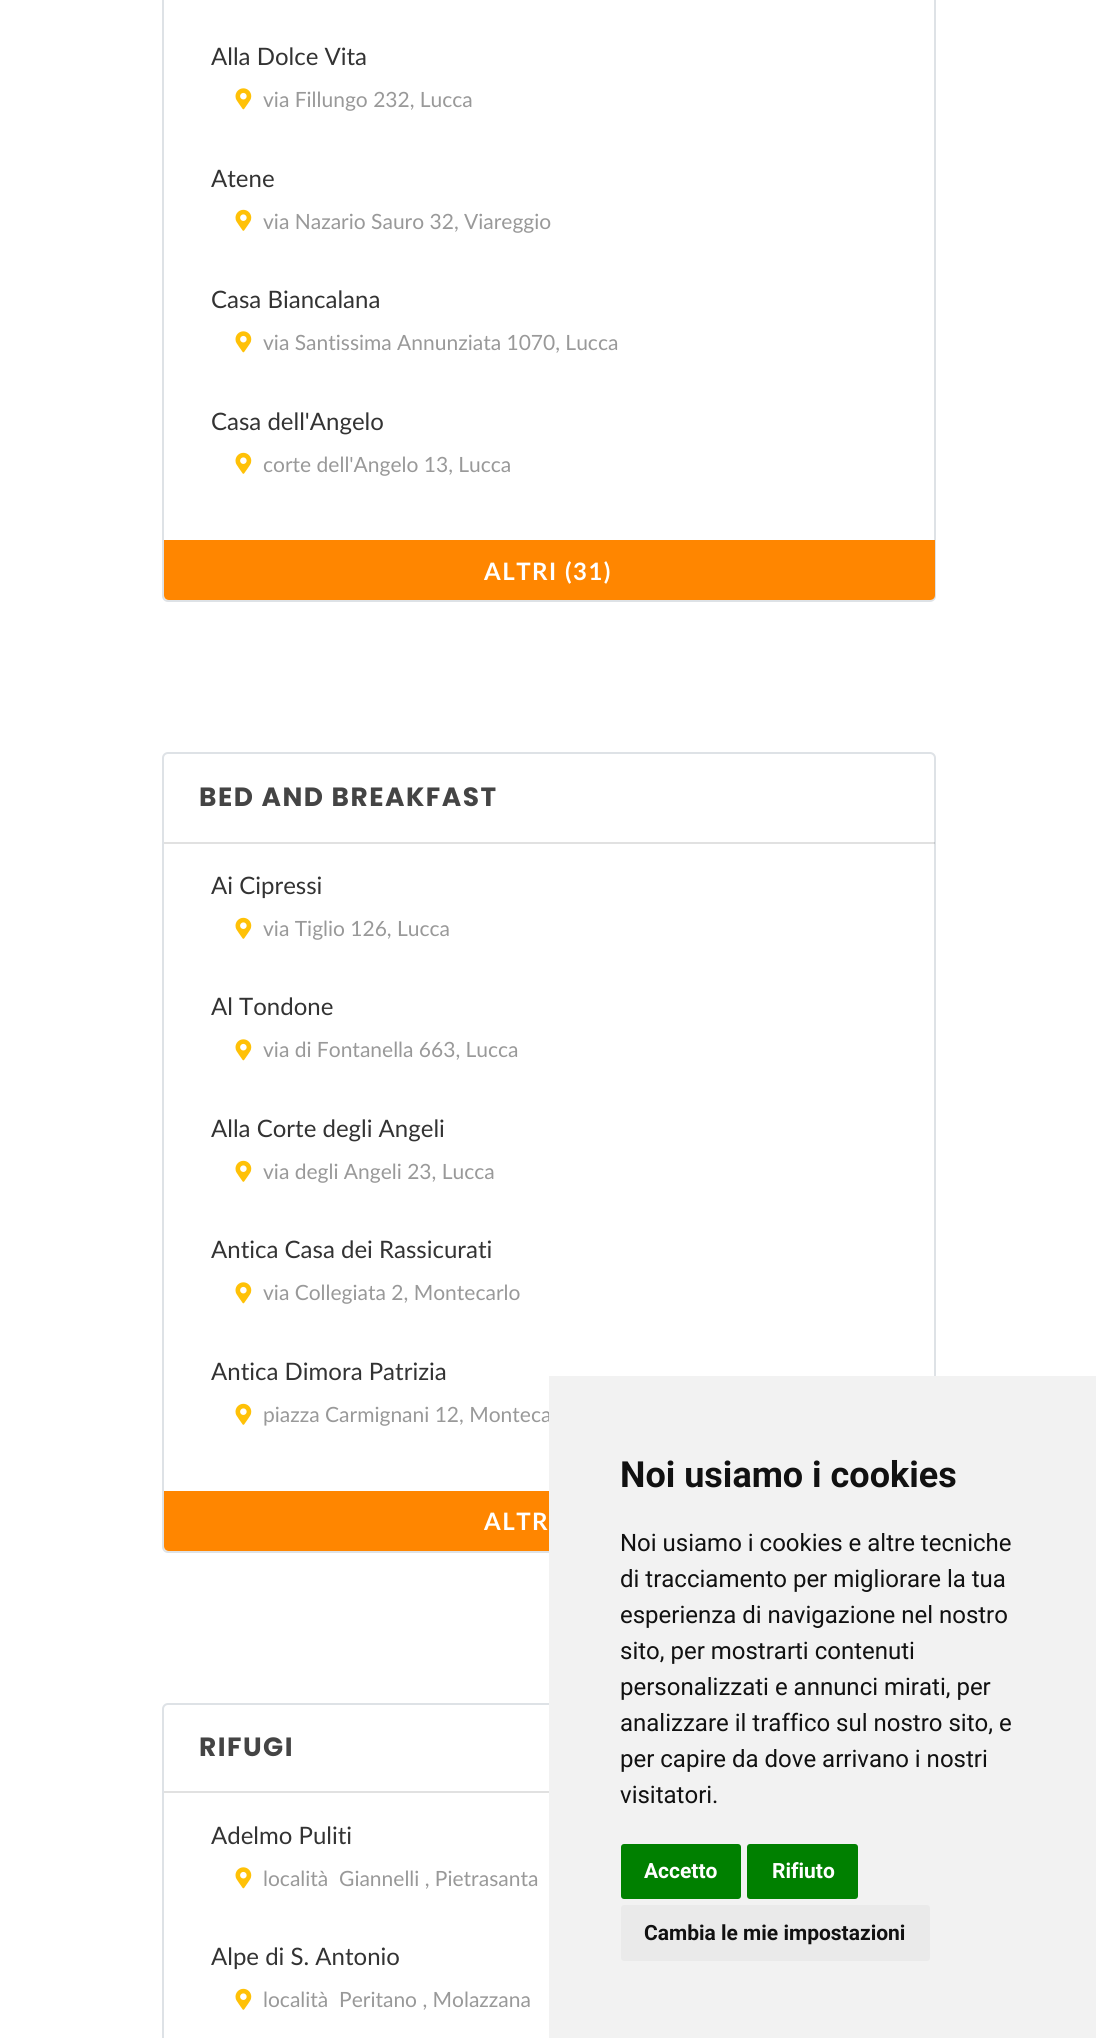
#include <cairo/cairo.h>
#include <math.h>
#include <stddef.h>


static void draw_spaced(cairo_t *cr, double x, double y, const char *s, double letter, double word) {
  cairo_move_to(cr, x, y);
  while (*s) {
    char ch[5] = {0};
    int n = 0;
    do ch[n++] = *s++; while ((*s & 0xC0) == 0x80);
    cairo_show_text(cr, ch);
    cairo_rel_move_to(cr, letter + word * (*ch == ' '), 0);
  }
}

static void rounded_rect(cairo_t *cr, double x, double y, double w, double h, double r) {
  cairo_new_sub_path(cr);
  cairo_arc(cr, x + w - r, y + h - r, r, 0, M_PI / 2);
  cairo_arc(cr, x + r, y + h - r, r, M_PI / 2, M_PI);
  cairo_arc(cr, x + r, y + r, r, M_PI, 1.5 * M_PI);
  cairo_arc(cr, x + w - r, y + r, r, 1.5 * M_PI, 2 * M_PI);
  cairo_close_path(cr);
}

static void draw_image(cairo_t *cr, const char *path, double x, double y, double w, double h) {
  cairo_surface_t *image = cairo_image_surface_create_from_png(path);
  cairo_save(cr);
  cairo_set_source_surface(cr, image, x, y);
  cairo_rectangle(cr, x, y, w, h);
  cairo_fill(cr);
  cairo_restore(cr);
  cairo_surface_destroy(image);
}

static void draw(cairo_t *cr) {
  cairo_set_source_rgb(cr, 1, 1, 1);
  cairo_paint(cr);
  rounded_rect(cr, 163, -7, 772, 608, 5);
  cairo_set_source_rgb(cr, 222 / 255.0, 226 / 255.0, 230 / 255.0);
  cairo_stroke(cr);
  draw_image(cr, "images/1.png", 235, 88, 17, 22);
  draw_image(cr, "images/2.png", 235, 209, 17, 22);
  draw_image(cr, "images/1.png", 235, 331, 17, 22);
  draw_image(cr, "images/2.png", 235, 452, 17, 22);
  cairo_set_source_rgb(cr, 1, 134 / 255.0, 0);
  cairo_new_path(cr);
  cairo_move_to(cr, 164, 540);
  cairo_line_to(cr, 935, 540);
  cairo_line_to(cr, 935, 595);
  cairo_curve_to(cr, 935, 598, 933, 600, 930, 600);
  cairo_line_to(cr, 169, 600);
  cairo_curve_to(cr, 166, 600, 164, 598, 164, 595);
  cairo_close_path(cr);
  cairo_fill(cr);
  rounded_rect(cr, 163, 753, 772, 799, 5);
  cairo_set_source_rgb(cr, 222 / 255.0, 226 / 255.0, 230 / 255.0);
  cairo_stroke(cr);
  cairo_set_source_rgba(cr, 0, 0, 0, 0.12);
  cairo_rectangle(cr, 164, 842, 771, 2);
  cairo_fill(cr);
  draw_image(cr, "images/2.png", 235, 917, 17, 22);
  draw_image(cr, "images/1.png", 235, 1039, 17, 22);
  draw_image(cr, "images/2.png", 235, 1160, 17, 22);
  draw_image(cr, "images/1.png", 235, 1282, 17, 22);
  draw_image(cr, "images/2.png", 235, 1403, 17, 22);
  cairo_set_source_rgb(cr, 1, 134 / 255.0, 0);
  cairo_new_path(cr);
  cairo_move_to(cr, 164, 1491);
  cairo_line_to(cr, 935, 1491);
  cairo_line_to(cr, 935, 1546);
  cairo_curve_to(cr, 935, 1549, 933, 1551, 930, 1551);
  cairo_line_to(cr, 169, 1551);
  cairo_curve_to(cr, 166, 1551, 164, 1549, 164, 1546);
  cairo_close_path(cr);
  cairo_fill(cr);
  rounded_rect(cr, 163, 1704, 772, 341, 5);
  cairo_set_source_rgb(cr, 222 / 255.0, 226 / 255.0, 230 / 255.0);
  cairo_stroke(cr);
  cairo_set_source_rgba(cr, 0, 0, 0, 0.12);
  cairo_rectangle(cr, 164, 1791, 385, 2);
  cairo_fill(cr);
  draw_image(cr, "images/1.png", 235, 1867, 17, 22);
  draw_image(cr, "images/2.png", 235, 1988, 17, 22);
  cairo_select_font_face(cr, "Lato", CAIRO_FONT_SLANT_NORMAL, CAIRO_FONT_WEIGHT_NORMAL);
  cairo_set_font_size(cr, 24);
  cairo_set_source_rgb(cr, 51 / 255.0, 51 / 255.0, 51 / 255.0);
  cairo_move_to(cr, 211, 65);
  cairo_show_text(cr, "Alla Dolce Vita");
  cairo_set_font_size(cr, 21);
  cairo_set_source_rgb(cr, 153 / 255.0, 153 / 255.0, 153 / 255.0);
  cairo_move_to(cr, 263, 107);
  cairo_show_text(cr, "via Fillungo 232, Lucca");
  cairo_set_font_size(cr, 24);
  cairo_set_source_rgb(cr, 51 / 255.0, 51 / 255.0, 51 / 255.0);
  cairo_move_to(cr, 211, 187);
  cairo_show_text(cr, "Atene");
  cairo_set_font_size(cr, 21);
  cairo_set_source_rgb(cr, 153 / 255.0, 153 / 255.0, 153 / 255.0);
  cairo_move_to(cr, 263, 229);
  cairo_show_text(cr, "via Nazario Sauro 32, Viareggio");
  cairo_set_font_size(cr, 24);
  cairo_set_source_rgb(cr, 51 / 255.0, 51 / 255.0, 51 / 255.0);
  cairo_move_to(cr, 211, 308);
  cairo_show_text(cr, "Casa Biancalana");
  cairo_set_font_size(cr, 21);
  cairo_set_source_rgb(cr, 153 / 255.0, 153 / 255.0, 153 / 255.0);
  cairo_move_to(cr, 263, 350);
  cairo_show_text(cr, "via Santissima Annunziata 1070, Lucca");
  cairo_set_font_size(cr, 24);
  cairo_set_source_rgb(cr, 51 / 255.0, 51 / 255.0, 51 / 255.0);
  cairo_move_to(cr, 211, 430);
  cairo_show_text(cr, "Casa dell'Angelo");
  cairo_set_font_size(cr, 21);
  cairo_set_source_rgb(cr, 153 / 255.0, 153 / 255.0, 153 / 255.0);
  cairo_move_to(cr, 263, 472);
  cairo_show_text(cr, "corte dell'Angelo 13, Lucca");
  cairo_select_font_face(cr, "Lato", CAIRO_FONT_SLANT_NORMAL, CAIRO_FONT_WEIGHT_BOLD);
  cairo_set_font_size(cr, 24);
  cairo_set_source_rgb(cr, 1, 1, 1);
  draw_spaced(cr, 484, 580, "ALTRI (31)", 1.5, 0);
  cairo_select_font_face(cr, "Poppins", CAIRO_FONT_SLANT_NORMAL, CAIRO_FONT_WEIGHT_BOLD);
  cairo_set_font_size(cr, 26.4);
  cairo_set_source_rgb(cr, 68 / 255.0, 68 / 255.0, 68 / 255.0);
  draw_spaced(cr, 199, 806, "BED AND BREAKFAST", 1.5, 0);
  cairo_select_font_face(cr, "Lato", CAIRO_FONT_SLANT_NORMAL, CAIRO_FONT_WEIGHT_NORMAL);
  cairo_set_font_size(cr, 24);
  cairo_set_source_rgb(cr, 51 / 255.0, 51 / 255.0, 51 / 255.0);
  cairo_move_to(cr, 211, 894);
  cairo_show_text(cr, "Ai Cipressi");
  cairo_set_font_size(cr, 21);
  cairo_set_source_rgb(cr, 153 / 255.0, 153 / 255.0, 153 / 255.0);
  cairo_move_to(cr, 263, 936);
  cairo_show_text(cr, "via Tiglio 126, Lucca");
  cairo_set_font_size(cr, 24);
  cairo_set_source_rgb(cr, 51 / 255.0, 51 / 255.0, 51 / 255.0);
  cairo_move_to(cr, 211, 1015);
  cairo_show_text(cr, "Al Tondone");
  cairo_set_font_size(cr, 21);
  cairo_set_source_rgb(cr, 153 / 255.0, 153 / 255.0, 153 / 255.0);
  cairo_move_to(cr, 263, 1057);
  cairo_show_text(cr, "via di Fontanella 663, Lucca");
  cairo_set_font_size(cr, 24);
  cairo_set_source_rgb(cr, 51 / 255.0, 51 / 255.0, 51 / 255.0);
  cairo_move_to(cr, 211, 1137);
  cairo_show_text(cr, "Alla Corte degli Angeli");
  cairo_set_font_size(cr, 21);
  cairo_set_source_rgb(cr, 153 / 255.0, 153 / 255.0, 153 / 255.0);
  cairo_move_to(cr, 263, 1179);
  cairo_show_text(cr, "via degli Angeli 23, Lucca");
  cairo_set_font_size(cr, 24);
  cairo_set_source_rgb(cr, 51 / 255.0, 51 / 255.0, 51 / 255.0);
  cairo_move_to(cr, 211, 1258);
  cairo_show_text(cr, "Antica Casa dei Rassicurati");
  cairo_set_font_size(cr, 21);
  cairo_set_source_rgb(cr, 153 / 255.0, 153 / 255.0, 153 / 255.0);
  cairo_move_to(cr, 263, 1300);
  cairo_show_text(cr, "via Collegiata 2, Montecarlo");
  cairo_set_font_size(cr, 24);
  cairo_set_source_rgb(cr, 51 / 255.0, 51 / 255.0, 51 / 255.0);
  cairo_move_to(cr, 211, 1380);
  cairo_show_text(cr, "Antica Dimora Patrizia");
  cairo_set_font_size(cr, 21);
  cairo_set_source_rgb(cr, 153 / 255.0, 153 / 255.0, 153 / 255.0);
  cairo_move_to(cr, 263, 1422);
  cairo_show_text(cr, "piazza Carmignani 12, Monteca");
  cairo_select_font_face(cr, "Lato", CAIRO_FONT_SLANT_NORMAL, CAIRO_FONT_WEIGHT_BOLD);
  cairo_set_font_size(cr, 24);
  cairo_set_source_rgb(cr, 1, 1, 1);
  draw_spaced(cr, 484, 1530, "ALTR", 1.5, 0);
  cairo_select_font_face(cr, "Poppins", CAIRO_FONT_SLANT_NORMAL, CAIRO_FONT_WEIGHT_BOLD);
  cairo_set_font_size(cr, 26.4);
  cairo_set_source_rgb(cr, 68 / 255.0, 68 / 255.0, 68 / 255.0);
  draw_spaced(cr, 199, 1756, "RIFUGI", 1.5, 0);
  cairo_select_font_face(cr, "Lato", CAIRO_FONT_SLANT_NORMAL, CAIRO_FONT_WEIGHT_NORMAL);
  cairo_set_font_size(cr, 24);
  cairo_set_source_rgb(cr, 51 / 255.0, 51 / 255.0, 51 / 255.0);
  cairo_move_to(cr, 211, 1844);
  cairo_show_text(cr, "Adelmo Puliti");
  cairo_set_font_size(cr, 21);
  cairo_set_source_rgb(cr, 153 / 255.0, 153 / 255.0, 153 / 255.0);
  cairo_move_to(cr, 263, 1886);
  cairo_show_text(cr, "località  Giannelli , Pietrasanta");
  cairo_set_font_size(cr, 24);
  cairo_set_source_rgb(cr, 51 / 255.0, 51 / 255.0, 51 / 255.0);
  cairo_move_to(cr, 211, 1965);
  cairo_show_text(cr, "Alpe di S. Antonio");
  cairo_set_font_size(cr, 21);
  cairo_set_source_rgb(cr, 153 / 255.0, 153 / 255.0, 153 / 255.0);
  cairo_move_to(cr, 263, 2007);
  cairo_show_text(cr, "località  Peritano , Molazzana");
  cairo_set_source_rgb(cr, 242 / 255.0, 242 / 255.0, 242 / 255.0);
  cairo_rectangle(cr, 549, 1376, 547, 662);
  cairo_fill(cr);
  cairo_select_font_face(cr, "Roboto", CAIRO_FONT_SLANT_NORMAL, CAIRO_FONT_WEIGHT_BOLD);
  cairo_set_font_size(cr, 36);
  cairo_set_source_rgb(cr, 17 / 255.0, 17 / 255.0, 17 / 255.0);
  cairo_move_to(cr, 620, 1487);
  cairo_show_text(cr, "Noi usiamo i cookies");
  cairo_select_font_face(cr, "Roboto", CAIRO_FONT_SLANT_NORMAL, CAIRO_FONT_WEIGHT_NORMAL);
  cairo_set_font_size(cr, 24);
  cairo_move_to(cr, 620, 1551);
  cairo_show_text(cr, "Noi usiamo i cookies e altre tecniche");
  cairo_move_to(cr, 620, 1587);
  cairo_show_text(cr, "di tracciamento per migliorare la tua");
  cairo_move_to(cr, 620, 1623);
  cairo_show_text(cr, "esperienza di navigazione nel nostro");
  cairo_move_to(cr, 620, 1659);
  cairo_show_text(cr, "sito, per mostrarti contenuti");
  cairo_move_to(cr, 620, 1695);
  cairo_show_text(cr, "personalizzati e annunci mirati, per");
  cairo_move_to(cr, 620, 1731);
  cairo_show_text(cr, "analizzare il traffico sul nostro sito, e");
  cairo_move_to(cr, 620, 1767);
  cairo_show_text(cr, "per capire da dove arrivano i nostri");
  cairo_move_to(cr, 620, 1803);
  cairo_show_text(cr, "visitatori.");
  cairo_set_source_rgb(cr, 0, 128 / 255.0, 0);
  rounded_rect(cr, 621, 1844, 120, 55, 3);
  cairo_fill(cr);
  cairo_select_font_face(cr, "Roboto", CAIRO_FONT_SLANT_NORMAL, CAIRO_FONT_WEIGHT_BOLD);
  cairo_set_font_size(cr, 21);
  cairo_set_source_rgb(cr, 1, 1, 1);
  cairo_move_to(cr, 644, 1878);
  cairo_show_text(cr, "Accetto");
  cairo_set_source_rgb(cr, 0, 128 / 255.0, 0);
  rounded_rect(cr, 747, 1844, 111, 55, 3);
  cairo_fill(cr);
  cairo_set_source_rgb(cr, 1, 1, 1);
  cairo_move_to(cr, 772, 1878);
  cairo_show_text(cr, "Rifiuto");
  cairo_set_source_rgb(cr, 234 / 255.0, 234 / 255.0, 234 / 255.0);
  rounded_rect(cr, 621, 1905, 309, 56, 3);
  cairo_fill(cr);
  cairo_set_source_rgb(cr, 17 / 255.0, 17 / 255.0, 17 / 255.0);
  cairo_move_to(cr, 644, 1940);
  cairo_show_text(cr, "Cambia le mie impostazioni");
}

int main(void) {
  cairo_surface_t *surface = cairo_image_surface_create(CAIRO_FORMAT_RGB24, 1096, 2038);
  cairo_t *cr = cairo_create(surface);
  cairo_font_options_t *options = cairo_font_options_create();
  cairo_font_options_set_hint_metrics(options, CAIRO_HINT_METRICS_OFF);
  cairo_font_options_set_hint_style(options, CAIRO_HINT_STYLE_NONE);
  cairo_set_font_options(cr, options);
  cairo_set_miter_limit(cr, 4);
  draw(cr);
  cairo_surface_write_to_png(surface, "out.png");
  cairo_font_options_destroy(options);
  cairo_destroy(cr);
  cairo_surface_destroy(surface);
  return 0;
}
